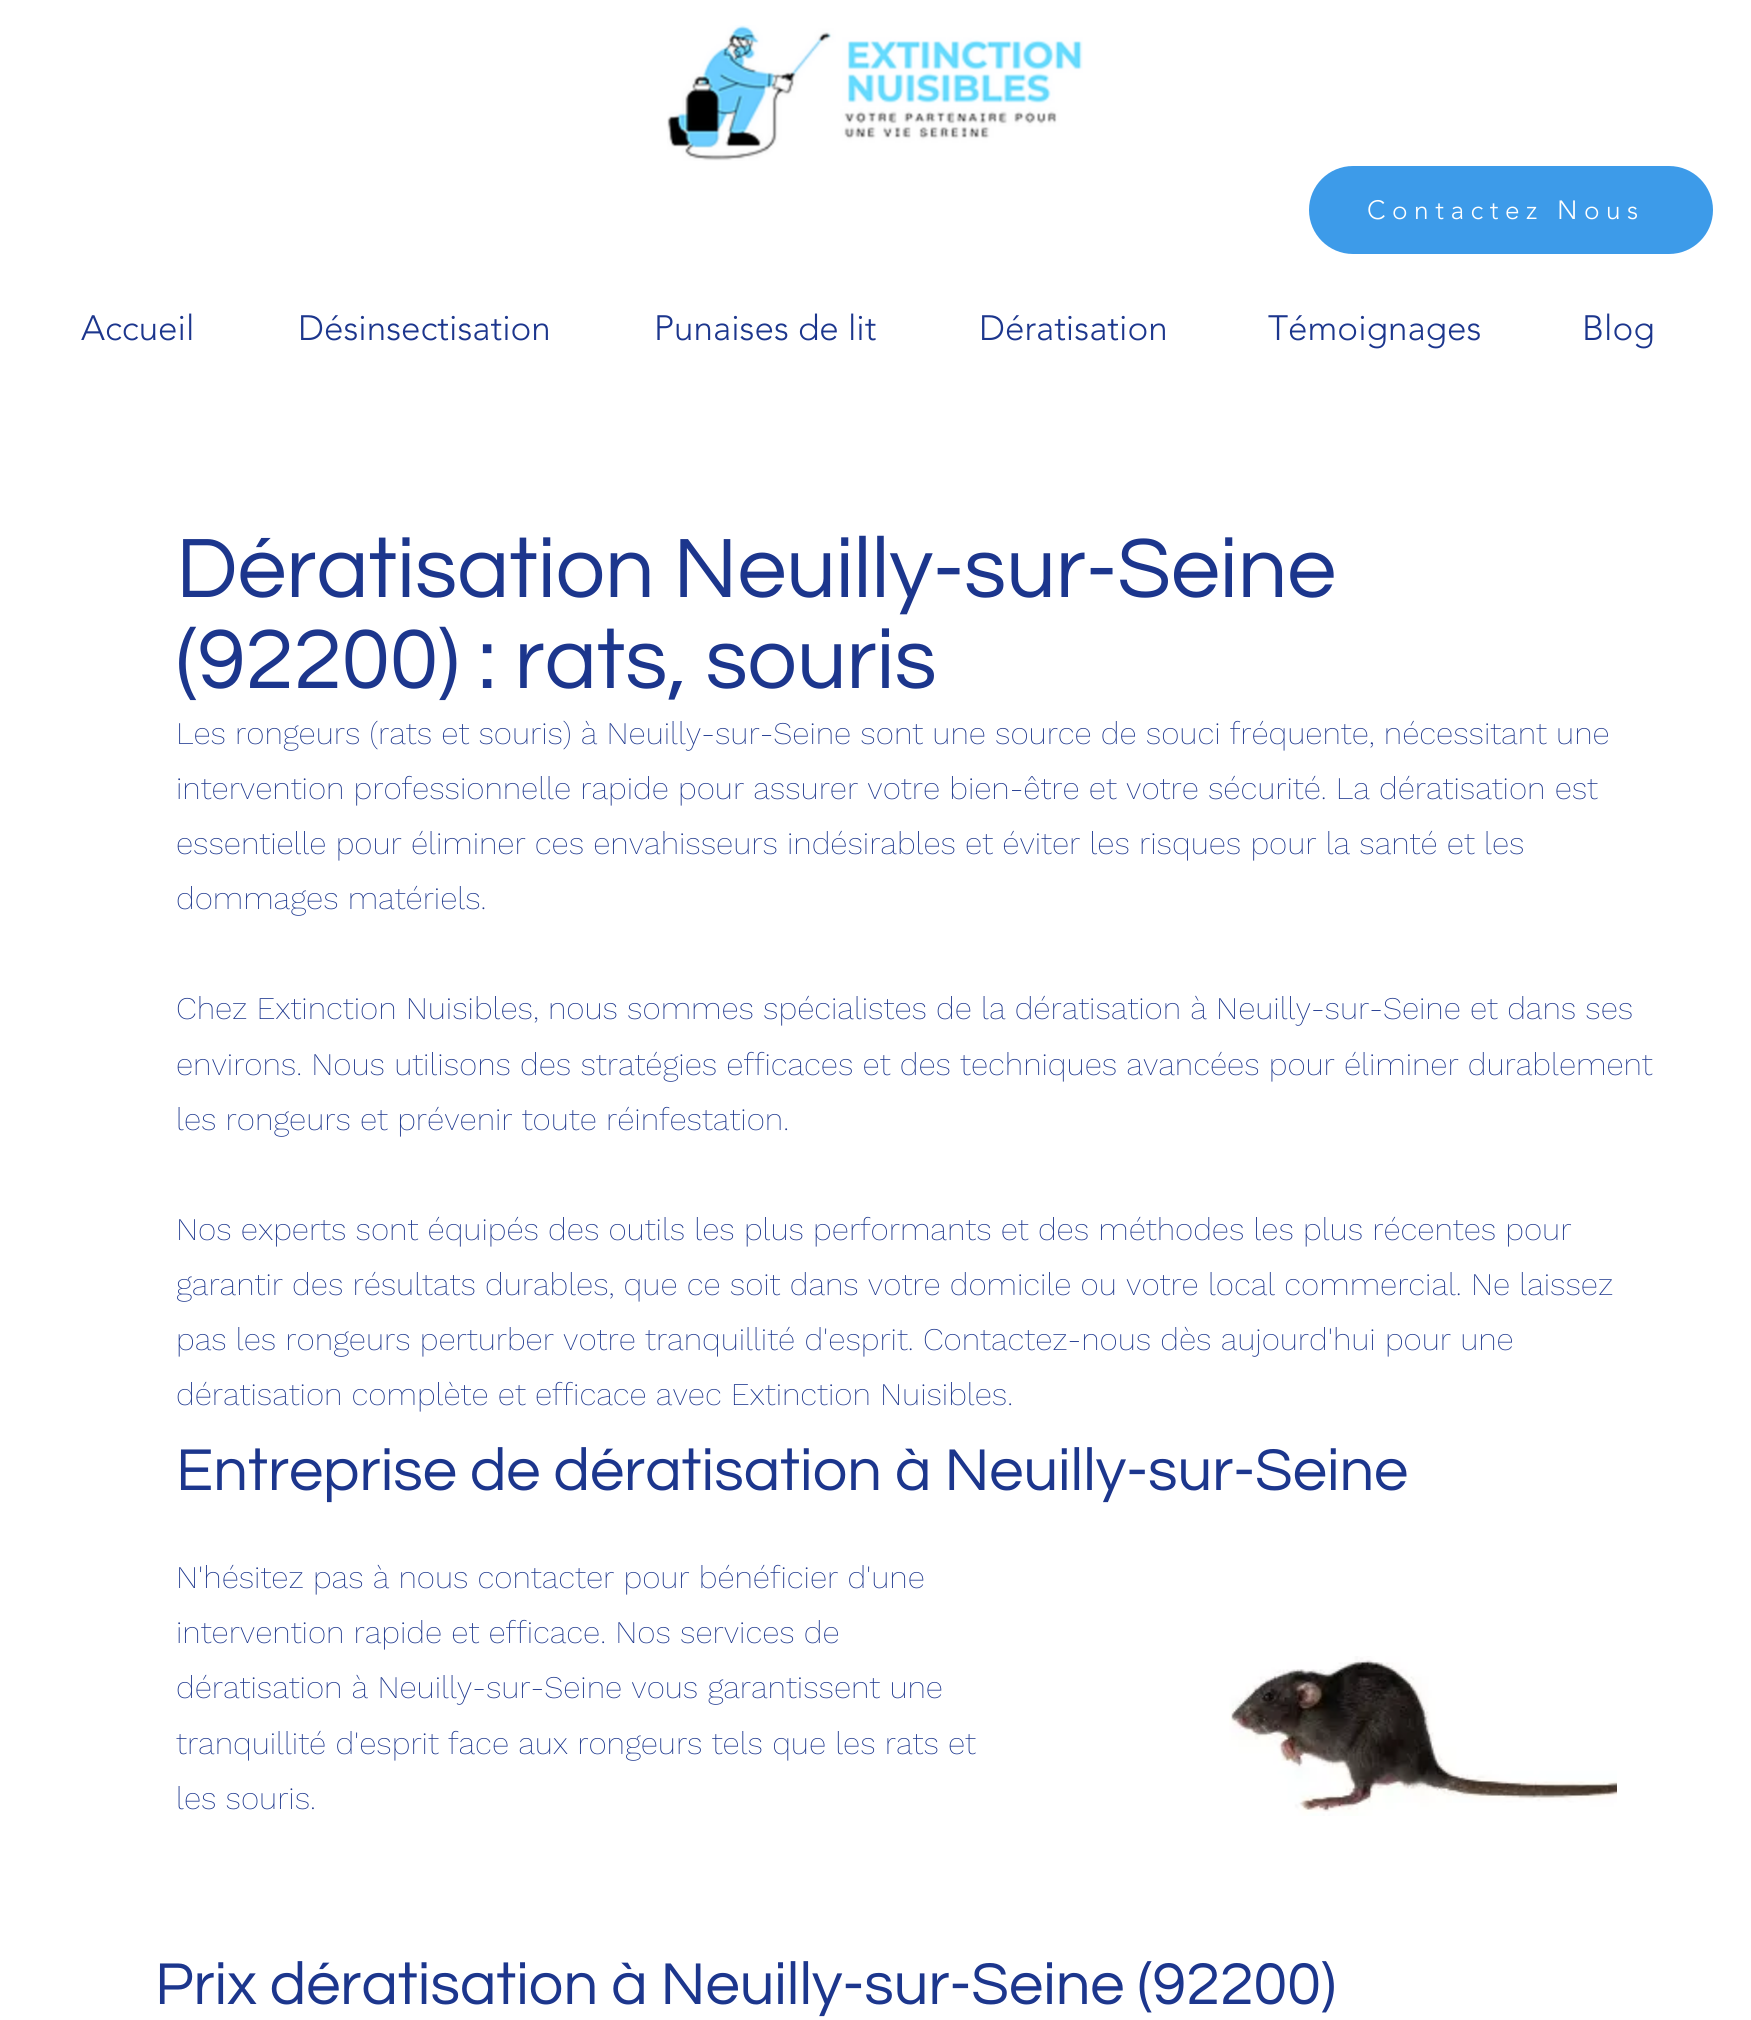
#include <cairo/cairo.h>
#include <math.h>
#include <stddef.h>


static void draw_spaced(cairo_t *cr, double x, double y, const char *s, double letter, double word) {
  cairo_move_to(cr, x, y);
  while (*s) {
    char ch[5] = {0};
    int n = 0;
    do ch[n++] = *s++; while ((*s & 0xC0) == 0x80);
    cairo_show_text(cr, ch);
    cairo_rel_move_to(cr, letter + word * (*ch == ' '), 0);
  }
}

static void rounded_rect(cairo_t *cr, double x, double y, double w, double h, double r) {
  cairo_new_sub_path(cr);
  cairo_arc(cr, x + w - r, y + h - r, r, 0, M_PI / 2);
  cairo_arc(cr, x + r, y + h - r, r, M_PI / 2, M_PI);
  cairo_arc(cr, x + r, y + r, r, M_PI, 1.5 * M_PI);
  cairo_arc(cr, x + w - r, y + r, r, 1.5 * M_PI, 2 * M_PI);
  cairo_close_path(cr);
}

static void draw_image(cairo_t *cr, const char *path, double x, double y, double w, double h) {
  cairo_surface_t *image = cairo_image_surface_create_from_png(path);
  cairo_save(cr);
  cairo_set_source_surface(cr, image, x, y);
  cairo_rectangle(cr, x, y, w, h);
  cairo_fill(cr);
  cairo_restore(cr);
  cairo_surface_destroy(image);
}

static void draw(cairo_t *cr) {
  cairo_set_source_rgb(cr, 1, 1, 1);
  cairo_paint(cr);
  draw_image(cr, "images/1.png", 667, 25, 416, 136);
  cairo_set_source_rgb(cr, 61 / 255.0, 155 / 255.0, 233 / 255.0);
  rounded_rect(cr, 1309, 166, 404, 88, 44);
  cairo_fill(cr);
  draw_image(cr, "images/2.png", 1229, 1656, 388, 160);
  cairo_select_font_face(cr, "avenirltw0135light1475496 Light", CAIRO_FONT_SLANT_NORMAL, CAIRO_FONT_WEIGHT_NORMAL);
  cairo_set_font_size(cr, 26.25);
  cairo_set_source_rgb(cr, 1, 1, 1);
  draw_spaced(cr, 1367, 219, "Contactez Nous", 6.5, 0);
  cairo_set_font_size(cr, 35);
  cairo_set_source_rgb(cr, 28 / 255.0, 54 / 255.0, 141 / 255.0);
  cairo_move_to(cr, 81, 340);
  cairo_show_text(cr, "Accueil");
  cairo_move_to(cr, 298, 340);
  cairo_show_text(cr, "Désinsectisation");
  cairo_move_to(cr, 654, 340);
  cairo_show_text(cr, "Punaises de lit");
  cairo_move_to(cr, 979, 340);
  cairo_show_text(cr, "Dératisation");
  cairo_move_to(cr, 1268, 340);
  cairo_show_text(cr, "Témoignages");
  cairo_move_to(cr, 1582, 340);
  cairo_show_text(cr, "Blog");
  cairo_select_font_face(cr, "Questrial", CAIRO_FONT_SLANT_NORMAL, CAIRO_FONT_WEIGHT_NORMAL);
  cairo_set_font_size(cr, 87.5);
  cairo_move_to(cr, 176, 597);
  cairo_show_text(cr, "Dératisation Neuilly-sur-Seine");
  cairo_move_to(cr, 176, 688);
  cairo_show_text(cr, "(92200) : rats, souris");
  cairo_select_font_face(cr, "Work Sans ExtraLight", CAIRO_FONT_SLANT_NORMAL, CAIRO_FONT_WEIGHT_NORMAL);
  cairo_set_font_size(cr, 31.5);
  cairo_move_to(cr, 176, 744);
  cairo_show_text(cr, "Les rongeurs (rats et souris) à Neuilly-sur-Seine sont une source de souci fréquente, nécessitant une");
  cairo_move_to(cr, 176, 799);
  cairo_show_text(cr, "intervention professionnelle rapide pour assurer votre bien-être et votre sécurité. La dératisation est");
  cairo_move_to(cr, 176, 854);
  cairo_show_text(cr, "essentielle pour éliminer ces envahisseurs indésirables et éviter les risques pour la santé et les");
  cairo_move_to(cr, 176, 909);
  cairo_show_text(cr, "dommages matériels.");
  cairo_move_to(cr, 176, 1019);
  cairo_show_text(cr, "Chez Extinction Nuisibles, nous sommes spécialistes de la dératisation à Neuilly-sur-Seine et dans ses");
  cairo_move_to(cr, 176, 1075);
  cairo_show_text(cr, "environs. Nous utilisons des stratégies efficaces et des techniques avancées pour éliminer durablement");
  cairo_move_to(cr, 176, 1130);
  cairo_show_text(cr, "les rongeurs et prévenir toute réinfestation.");
  cairo_move_to(cr, 176, 1240);
  cairo_show_text(cr, "Nos experts sont équipés des outils les plus performants et des méthodes les plus récentes pour");
  cairo_move_to(cr, 176, 1295);
  cairo_show_text(cr, "garantir des résultats durables, que ce soit dans votre domicile ou votre local commercial. Ne laissez");
  cairo_move_to(cr, 176, 1350);
  cairo_show_text(cr, "pas les rongeurs perturber votre tranquillité d'esprit. Contactez-nous dès aujourd'hui pour une");
  cairo_move_to(cr, 176, 1405);
  cairo_show_text(cr, "dératisation complète et efficace avec Extinction Nuisibles.");
  cairo_select_font_face(cr, "Questrial", CAIRO_FONT_SLANT_NORMAL, CAIRO_FONT_WEIGHT_NORMAL);
  cairo_set_font_size(cr, 61.25);
  cairo_move_to(cr, 176, 1490);
  cairo_show_text(cr, "Entreprise de dératisation à Neuilly-sur-Seine");
  cairo_select_font_face(cr, "Work Sans ExtraLight", CAIRO_FONT_SLANT_NORMAL, CAIRO_FONT_WEIGHT_NORMAL);
  cairo_set_font_size(cr, 31.5);
  cairo_move_to(cr, 176, 1588);
  cairo_show_text(cr, "N'hésitez pas à nous contacter pour bénéficier d'une");
  cairo_move_to(cr, 176, 1643);
  cairo_show_text(cr, "intervention rapide et efficace. Nos services de");
  cairo_move_to(cr, 176, 1698);
  cairo_show_text(cr, "dératisation à Neuilly-sur-Seine vous garantissent une");
  cairo_move_to(cr, 176, 1754);
  cairo_show_text(cr, "tranquillité d'esprit face aux rongeurs tels que les rats et");
  cairo_move_to(cr, 176, 1809);
  cairo_show_text(cr, "les souris.");
  cairo_select_font_face(cr, "Questrial", CAIRO_FONT_SLANT_NORMAL, CAIRO_FONT_WEIGHT_NORMAL);
  cairo_set_font_size(cr, 61.25);
  cairo_move_to(cr, 155, 2004);
  cairo_show_text(cr, "Prix dératisation à Neuilly-sur-Seine (92200)");
}

int main(void) {
  cairo_surface_t *surface = cairo_image_surface_create(CAIRO_FORMAT_RGB24, 1751, 2020);
  cairo_t *cr = cairo_create(surface);
  cairo_font_options_t *options = cairo_font_options_create();
  cairo_font_options_set_hint_metrics(options, CAIRO_HINT_METRICS_OFF);
  cairo_font_options_set_hint_style(options, CAIRO_HINT_STYLE_NONE);
  cairo_set_font_options(cr, options);
  cairo_set_miter_limit(cr, 4);
  draw(cr);
  cairo_surface_write_to_png(surface, "out.png");
  cairo_font_options_destroy(options);
  cairo_destroy(cr);
  cairo_surface_destroy(surface);
  return 0;
}
